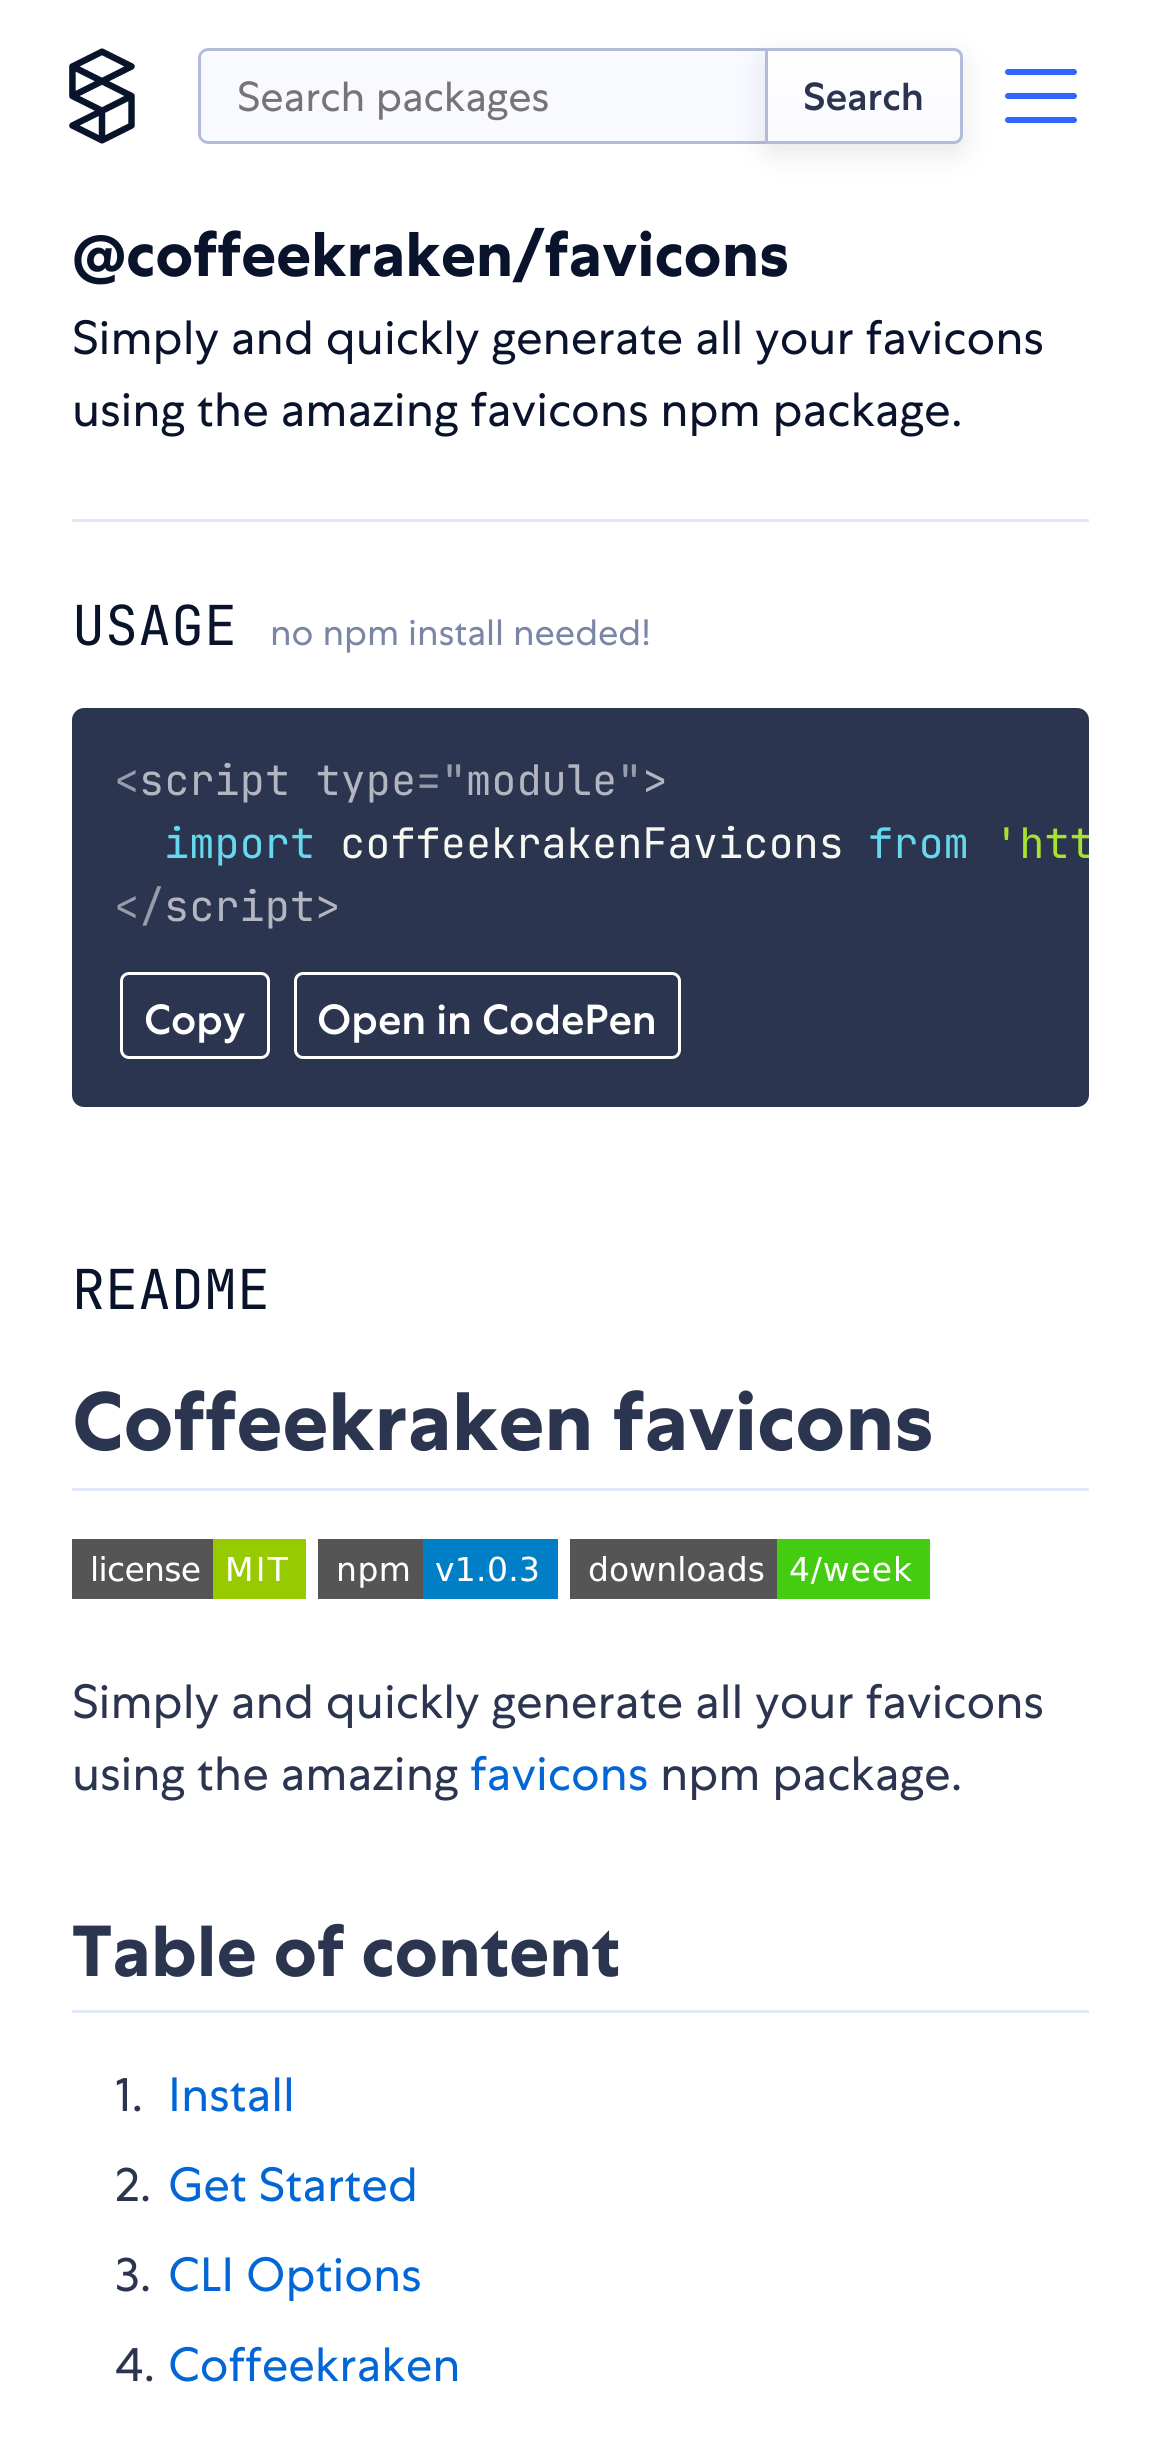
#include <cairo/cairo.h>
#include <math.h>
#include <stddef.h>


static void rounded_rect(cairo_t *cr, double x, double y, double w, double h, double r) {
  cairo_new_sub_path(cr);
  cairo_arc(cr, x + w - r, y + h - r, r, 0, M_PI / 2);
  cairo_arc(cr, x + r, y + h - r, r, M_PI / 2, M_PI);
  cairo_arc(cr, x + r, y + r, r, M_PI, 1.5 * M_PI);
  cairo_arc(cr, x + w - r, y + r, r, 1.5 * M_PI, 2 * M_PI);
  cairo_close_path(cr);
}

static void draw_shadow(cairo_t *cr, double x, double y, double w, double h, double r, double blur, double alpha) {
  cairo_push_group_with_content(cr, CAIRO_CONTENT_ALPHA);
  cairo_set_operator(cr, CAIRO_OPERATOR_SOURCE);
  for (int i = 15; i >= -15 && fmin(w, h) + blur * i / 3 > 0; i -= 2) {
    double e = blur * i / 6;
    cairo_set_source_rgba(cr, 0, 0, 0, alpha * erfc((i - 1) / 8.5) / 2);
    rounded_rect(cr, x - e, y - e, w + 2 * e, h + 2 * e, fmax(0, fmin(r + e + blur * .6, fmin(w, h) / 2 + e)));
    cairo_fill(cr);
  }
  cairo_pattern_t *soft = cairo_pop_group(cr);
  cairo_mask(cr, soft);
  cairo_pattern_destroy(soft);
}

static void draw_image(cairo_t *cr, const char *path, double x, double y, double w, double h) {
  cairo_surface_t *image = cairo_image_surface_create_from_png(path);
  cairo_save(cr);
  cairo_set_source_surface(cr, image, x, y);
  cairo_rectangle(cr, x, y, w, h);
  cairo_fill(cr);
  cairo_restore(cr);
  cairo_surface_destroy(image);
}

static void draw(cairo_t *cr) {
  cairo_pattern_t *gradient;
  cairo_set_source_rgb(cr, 1, 1, 1);
  cairo_paint(cr);
  draw_image(cr, "images/1.png", 69, 48, 66, 96);
  cairo_set_source_rgb(cr, 249 / 255.0, 250 / 255.0, 1);
  cairo_new_path(cr);
  cairo_move_to(cr, 207, 48);
  cairo_line_to(cr, 765, 48);
  cairo_line_to(cr, 765, 144);
  cairo_line_to(cr, 207, 144);
  cairo_curve_to(cr, 202, 144, 198, 140, 198, 135);
  cairo_line_to(cr, 198, 57);
  cairo_curve_to(cr, 198, 52, 202, 48, 207, 48);
  cairo_close_path(cr);
  cairo_fill(cr);
  cairo_set_source_rgb(cr, 178 / 255.0, 188 / 255.0, 218 / 255.0);
  cairo_set_fill_rule(cr, CAIRO_FILL_RULE_EVEN_ODD);
  cairo_new_path(cr);
  cairo_move_to(cr, 208, 48);
  cairo_line_to(cr, 765, 48);
  cairo_line_to(cr, 765, 144);
  cairo_line_to(cr, 208, 144);
  cairo_curve_to(cr, 203, 144, 198, 139, 198, 134);
  cairo_line_to(cr, 198, 58);
  cairo_curve_to(cr, 198, 53, 203, 48, 208, 48);
  cairo_close_path(cr);
  cairo_move_to(cr, 208, 51);
  cairo_line_to(cr, 765, 51);
  cairo_line_to(cr, 765, 141);
  cairo_line_to(cr, 208, 141);
  cairo_curve_to(cr, 204, 141, 201, 138, 201, 134);
  cairo_line_to(cr, 201, 58);
  cairo_curve_to(cr, 201, 54, 204, 51, 208, 51);
  cairo_close_path(cr);
  cairo_fill(cr);
  cairo_set_source_rgb(cr, 49 / 255.0, 103 / 255.0, 1);
  rounded_rect(cr, 1005, 69, 72, 6, 3);
  cairo_fill(cr);
  rounded_rect(cr, 1005, 93, 72, 6, 3);
  cairo_fill(cr);
  rounded_rect(cr, 1005, 117, 72, 6, 3);
  cairo_fill(cr);
  cairo_set_source_rgb(cr, 0, 0, 0);
  draw_shadow(cr, 765, 57, 198, 96, 9, 14.5, 0.1);
  gradient = cairo_pattern_create_linear(864, 48, 864, 144);
  cairo_pattern_add_color_stop_rgba(gradient, 0, 1, 1, 1, 1);
  cairo_pattern_add_color_stop_rgba(gradient, 1, 249 / 255.0, 250 / 255.0, 1, 1);
  cairo_set_source(cr, gradient);
  cairo_pattern_destroy(gradient);
  cairo_new_path(cr);
  cairo_move_to(cr, 766.5, 49.5);
  cairo_line_to(cr, 954, 49.5);
  cairo_curve_to(cr, 958, 49.5, 961.5, 53, 961.5, 57);
  cairo_line_to(cr, 961.5, 135);
  cairo_curve_to(cr, 961.5, 139, 958, 142.5, 954, 142.5);
  cairo_line_to(cr, 766.5, 142.5);
  cairo_close_path(cr);
  cairo_fill_preserve(cr);
  cairo_set_source_rgb(cr, 178 / 255.0, 188 / 255.0, 218 / 255.0);
  cairo_set_line_width(cr, 3);
  cairo_stroke(cr);
  cairo_set_source_rgb(cr, 227 / 255.0, 232 / 255.0, 248 / 255.0);
  cairo_rectangle(cr, 72, 519, 1017, 3);
  cairo_fill(cr);
  cairo_set_source_rgb(cr, 43 / 255.0, 53 / 255.0, 79 / 255.0);
  rounded_rect(cr, 72, 708, 1017, 399, 12);
  cairo_fill(cr);
  rounded_rect(cr, 121.5, 973.5, 147, 84, 7.5);
  cairo_set_source_rgb(cr, 1, 1, 1);
  cairo_stroke(cr);
  rounded_rect(cr, 295.5, 973.5, 384, 84, 7.5);
  cairo_stroke(cr);
  cairo_set_source_rgb(cr, 227 / 255.0, 232 / 255.0, 248 / 255.0);
  cairo_rectangle(cr, 72, 1488, 1017, 3);
  cairo_fill(cr);
  draw_image(cr, "images/2.png", 72, 1539, 234, 60);
  draw_image(cr, "images/3.png", 318, 1539, 240, 60);
  draw_image(cr, "images/4.png", 570, 1539, 360, 60);
  cairo_rectangle(cr, 72, 2010, 1017, 3);
  cairo_fill(cr);
  cairo_select_font_face(cr, "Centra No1", CAIRO_FONT_SLANT_NORMAL, CAIRO_FONT_WEIGHT_NORMAL);
  cairo_set_font_size(cr, 42);
  cairo_set_source_rgb(cr, 117 / 255.0, 117 / 255.0, 117 / 255.0);
  cairo_move_to(cr, 237, 111);
  cairo_show_text(cr, "Search packages");
  cairo_select_font_face(cr, "Centra No1 Medium", CAIRO_FONT_SLANT_NORMAL, CAIRO_FONT_WEIGHT_NORMAL);
  cairo_set_font_size(cr, 39);
  cairo_set_source_rgb(cr, 43 / 255.0, 53 / 255.0, 79 / 255.0);
  cairo_move_to(cr, 803, 110);
  cairo_show_text(cr, "Search");
  cairo_select_font_face(cr, "Centra No1", CAIRO_FONT_SLANT_NORMAL, CAIRO_FONT_WEIGHT_BOLD);
  cairo_set_font_size(cr, 62.9);
  cairo_set_source_rgb(cr, 9 / 255.0, 19 / 255.0, 43 / 255.0);
  cairo_move_to(cr, 72, 276);
  cairo_show_text(cr, "@coffeekraken/favicons");
  cairo_select_font_face(cr, "Centra No1", CAIRO_FONT_SLANT_NORMAL, CAIRO_FONT_WEIGHT_NORMAL);
  cairo_set_font_size(cr, 48);
  cairo_move_to(cr, 72, 354);
  cairo_show_text(cr, "Simply and quickly generate all your favicons");
  cairo_move_to(cr, 72, 426);
  cairo_show_text(cr, "using the amazing favicons npm package.");
  cairo_select_font_face(cr, "JetBrains Mono", CAIRO_FONT_SLANT_NORMAL, CAIRO_FONT_WEIGHT_NORMAL);
  cairo_set_font_size(cr, 55);
  cairo_move_to(cr, 72, 645);
  cairo_show_text(cr, "USAGE");
  cairo_select_font_face(cr, "Centra No1", CAIRO_FONT_SLANT_NORMAL, CAIRO_FONT_WEIGHT_NORMAL);
  cairo_set_font_size(cr, 36.6);
  cairo_set_source_rgb(cr, 121 / 255.0, 134 / 255.0, 165 / 255.0);
  cairo_move_to(cr, 270, 645);
  cairo_show_text(cr, "no npm install needed!");
  cairo_select_font_face(cr, "JetBrains Mono", CAIRO_FONT_SLANT_NORMAL, CAIRO_FONT_WEIGHT_NORMAL);
  cairo_set_font_size(cr, 42);
  cairo_set_source_rgb(cr, 179 / 255.0, 182 / 255.0, 192 / 255.0);
  cairo_move_to(cr, 139, 795);
  cairo_show_text(cr, "script type");
  cairo_set_source_rgb(cr, 152 / 255.0, 156 / 255.0, 169 / 255.0);
  cairo_move_to(cr, 416, 795);
  cairo_show_text(cr, "=\"");
  cairo_set_source_rgb(cr, 179 / 255.0, 182 / 255.0, 192 / 255.0);
  cairo_move_to(cr, 466, 795);
  cairo_show_text(cr, "module >");
  cairo_set_source_rgb(cr, 152 / 255.0, 156 / 255.0, 169 / 255.0);
  cairo_move_to(cr, 114, 795);
  cairo_show_text(cr, "<");
  cairo_move_to(cr, 617, 795);
  cairo_show_text(cr, "\"");
  cairo_set_source_rgb(cr, 102 / 255.0, 217 / 255.0, 239 / 255.0);
  cairo_move_to(cr, 164, 858);
  cairo_show_text(cr, "import");
  cairo_set_source_rgb(cr, 248 / 255.0, 248 / 255.0, 242 / 255.0);
  cairo_move_to(cr, 340, 858);
  cairo_show_text(cr, "coffeekrakenFavicons");
  cairo_set_source_rgb(cr, 102 / 255.0, 217 / 255.0, 239 / 255.0);
  cairo_move_to(cr, 868, 858);
  cairo_show_text(cr, "from");
  cairo_save(cr);
  cairo_set_fill_rule(cr, CAIRO_FILL_RULE_WINDING);
  rounded_rect(cr, 72, 708, 1017, 399, 12);
  cairo_clip(cr);
  cairo_set_source_rgb(cr, 166 / 255.0, 226 / 255.0, 46 / 255.0);
  cairo_move_to(cr, 994, 858);
  cairo_show_text(cr, "'htt");
  cairo_restore(cr);
  cairo_set_source_rgb(cr, 152 / 255.0, 156 / 255.0, 169 / 255.0);
  cairo_move_to(cr, 114, 921);
  cairo_show_text(cr, "</");
  cairo_set_source_rgb(cr, 179 / 255.0, 182 / 255.0, 192 / 255.0);
  cairo_move_to(cr, 164, 921);
  cairo_show_text(cr, "script>");
  cairo_select_font_face(cr, "Centra No1 Medium", CAIRO_FONT_SLANT_NORMAL, CAIRO_FONT_WEIGHT_NORMAL);
  cairo_set_source_rgb(cr, 1, 1, 1);
  cairo_move_to(cr, 144, 1034);
  cairo_show_text(cr, "Copy");
  cairo_move_to(cr, 317, 1034);
  cairo_show_text(cr, "Open in CodePen");
  cairo_select_font_face(cr, "JetBrains Mono", CAIRO_FONT_SLANT_NORMAL, CAIRO_FONT_WEIGHT_NORMAL);
  cairo_set_font_size(cr, 55);
  cairo_set_source_rgb(cr, 9 / 255.0, 19 / 255.0, 43 / 255.0);
  cairo_move_to(cr, 72, 1309);
  cairo_show_text(cr, "README");
  cairo_select_font_face(cr, "Centra No1", CAIRO_FONT_SLANT_NORMAL, CAIRO_FONT_WEIGHT_BOLD);
  cairo_set_font_size(cr, 82.5);
  cairo_set_source_rgb(cr, 43 / 255.0, 53 / 255.0, 79 / 255.0);
  cairo_move_to(cr, 72, 1450);
  cairo_show_text(cr, "Coffeekraken favicons");
  cairo_select_font_face(cr, "Centra No1", CAIRO_FONT_SLANT_NORMAL, CAIRO_FONT_WEIGHT_NORMAL);
  cairo_set_font_size(cr, 48);
  cairo_move_to(cr, 72, 1718);
  cairo_show_text(cr, "Simply and quickly generate all your favicons");
  cairo_move_to(cr, 72, 1790);
  cairo_show_text(cr, "using the amazing");
  cairo_set_source_rgb(cr, 3 / 255.0, 102 / 255.0, 214 / 255.0);
  cairo_move_to(cr, 470, 1790);
  cairo_show_text(cr, "favicons");
  cairo_set_source_rgb(cr, 43 / 255.0, 53 / 255.0, 79 / 255.0);
  cairo_move_to(cr, 660, 1790);
  cairo_show_text(cr, "npm package.");
  cairo_select_font_face(cr, "Centra No1", CAIRO_FONT_SLANT_NORMAL, CAIRO_FONT_WEIGHT_BOLD);
  cairo_set_font_size(cr, 72);
  cairo_move_to(cr, 72, 1976);
  cairo_show_text(cr, "Table of content");
  cairo_select_font_face(cr, "Centra No1", CAIRO_FONT_SLANT_NORMAL, CAIRO_FONT_WEIGHT_NORMAL);
  cairo_set_font_size(cr, 48);
  cairo_move_to(cr, 115, 2111);
  cairo_show_text(cr, "1.");
  cairo_set_source_rgb(cr, 3 / 255.0, 102 / 255.0, 214 / 255.0);
  cairo_move_to(cr, 168, 2111);
  cairo_show_text(cr, "Install");
  cairo_set_source_rgb(cr, 43 / 255.0, 53 / 255.0, 79 / 255.0);
  cairo_move_to(cr, 115, 2201);
  cairo_show_text(cr, "2.");
  cairo_set_source_rgb(cr, 3 / 255.0, 102 / 255.0, 214 / 255.0);
  cairo_move_to(cr, 168, 2201);
  cairo_show_text(cr, "Get Started");
  cairo_set_source_rgb(cr, 43 / 255.0, 53 / 255.0, 79 / 255.0);
  cairo_move_to(cr, 115, 2291);
  cairo_show_text(cr, "3.");
  cairo_set_source_rgb(cr, 3 / 255.0, 102 / 255.0, 214 / 255.0);
  cairo_move_to(cr, 168, 2291);
  cairo_show_text(cr, "CLI Options");
  cairo_set_source_rgb(cr, 43 / 255.0, 53 / 255.0, 79 / 255.0);
  cairo_move_to(cr, 115, 2381);
  cairo_show_text(cr, "4.");
  cairo_set_source_rgb(cr, 3 / 255.0, 102 / 255.0, 214 / 255.0);
  cairo_move_to(cr, 168, 2381);
  cairo_show_text(cr, "Coffeekraken");
}

int main(void) {
  cairo_surface_t *surface = cairo_image_surface_create(CAIRO_FORMAT_RGB24, 1160, 2438);
  cairo_t *cr = cairo_create(surface);
  cairo_font_options_t *options = cairo_font_options_create();
  cairo_font_options_set_hint_metrics(options, CAIRO_HINT_METRICS_OFF);
  cairo_font_options_set_hint_style(options, CAIRO_HINT_STYLE_NONE);
  cairo_set_font_options(cr, options);
  cairo_set_miter_limit(cr, 4);
  draw(cr);
  cairo_surface_write_to_png(surface, "out.png");
  cairo_font_options_destroy(options);
  cairo_destroy(cr);
  cairo_surface_destroy(surface);
  return 0;
}
